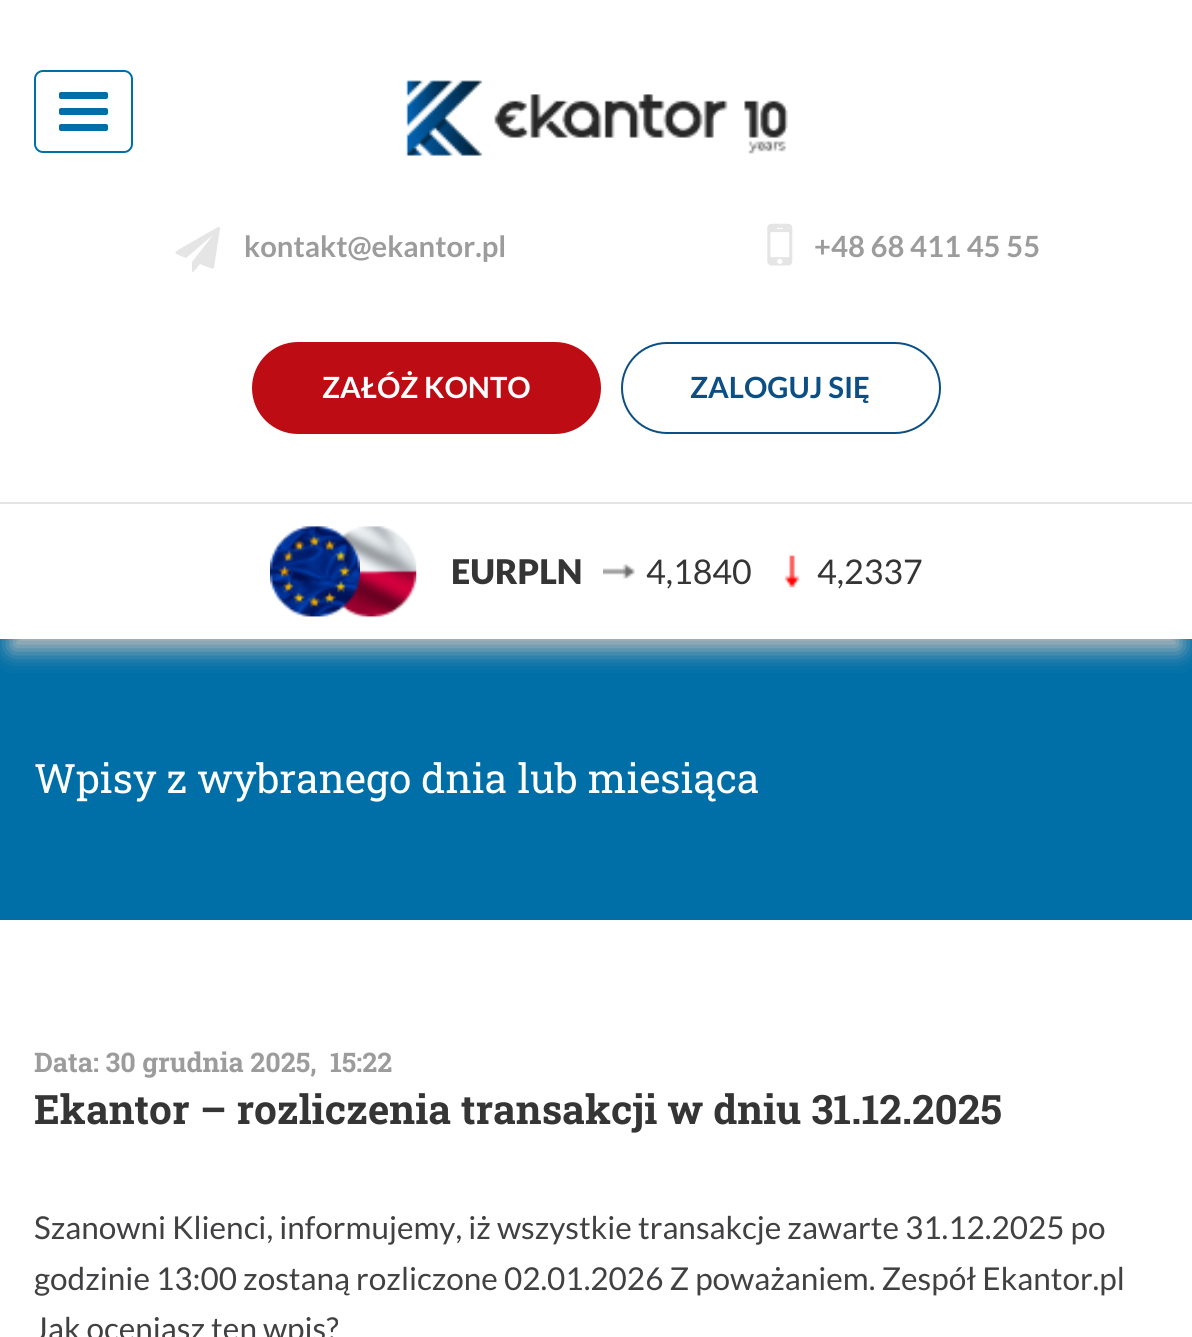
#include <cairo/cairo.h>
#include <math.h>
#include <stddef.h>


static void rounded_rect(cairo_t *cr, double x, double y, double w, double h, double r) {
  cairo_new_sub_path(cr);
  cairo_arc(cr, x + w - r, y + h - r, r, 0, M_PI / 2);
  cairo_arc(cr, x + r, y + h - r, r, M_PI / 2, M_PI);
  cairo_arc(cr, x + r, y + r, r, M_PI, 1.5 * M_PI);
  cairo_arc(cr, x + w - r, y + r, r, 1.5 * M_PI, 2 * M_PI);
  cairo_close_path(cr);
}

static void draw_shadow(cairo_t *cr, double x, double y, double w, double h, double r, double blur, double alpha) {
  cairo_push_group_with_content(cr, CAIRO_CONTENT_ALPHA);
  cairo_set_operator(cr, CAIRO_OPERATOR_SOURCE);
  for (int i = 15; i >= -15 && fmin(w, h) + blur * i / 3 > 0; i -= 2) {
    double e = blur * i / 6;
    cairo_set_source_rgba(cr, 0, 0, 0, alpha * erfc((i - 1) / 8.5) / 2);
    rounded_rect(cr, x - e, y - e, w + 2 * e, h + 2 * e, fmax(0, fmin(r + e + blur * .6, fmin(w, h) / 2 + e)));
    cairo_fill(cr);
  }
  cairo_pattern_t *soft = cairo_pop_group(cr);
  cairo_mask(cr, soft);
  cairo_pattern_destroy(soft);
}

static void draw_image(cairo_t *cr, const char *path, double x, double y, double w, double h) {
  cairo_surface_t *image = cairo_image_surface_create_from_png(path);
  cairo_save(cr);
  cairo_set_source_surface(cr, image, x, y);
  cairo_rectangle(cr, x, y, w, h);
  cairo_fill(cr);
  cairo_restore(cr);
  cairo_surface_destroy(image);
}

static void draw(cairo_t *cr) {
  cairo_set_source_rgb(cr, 1, 1, 1);
  cairo_paint(cr);
  rounded_rect(cr, 35, 71, 97, 81, 8);
  cairo_set_source_rgb(cr, 0, 111 / 255.0, 167 / 255.0);
  cairo_stroke(cr);
  rounded_rect(cr, 59, 92, 49, 7, 2);
  cairo_fill(cr);
  rounded_rect(cr, 59, 108, 49, 7, 2);
  cairo_fill(cr);
  rounded_rect(cr, 59, 124, 49, 7, 2);
  cairo_fill(cr);
  draw_image(cr, "images/1.png", 406, 80, 382, 76);
  cairo_set_source_rgb(cr, 229 / 255.0, 229 / 255.0, 229 / 255.0);
  cairo_new_path(cr);
  cairo_move_to(cr, 220, 227);
  cairo_line_to(cr, 220, 229);
  cairo_line_to(cr, 215, 261);
  cairo_curve_to(cr, 214, 267, 215, 270, 210, 268);
  cairo_line_to(cr, 200, 264);
  cairo_curve_to(cr, 191, 275, 192, 275, 192, 262);
  cairo_line_to(cr, 213, 235);
  cairo_line_to(cr, 186, 258);
  cairo_curve_to(cr, 174, 253, 171, 254, 183, 247);
  cairo_line_to(cr, 218, 227);
  cairo_close_path(cr);
  cairo_fill(cr);
  draw_image(cr, "images/2.png", 767, 223, 26, 43);
  cairo_set_source_rgb(cr, 189 / 255.0, 12 / 255.0, 19 / 255.0);
  rounded_rect(cr, 253, 343, 347, 90, 45);
  cairo_fill_preserve(cr);
  cairo_stroke(cr);
  rounded_rect(cr, 622, 343, 318, 90, 45);
  cairo_set_source_rgb(cr, 11 / 255.0, 79 / 255.0, 132 / 255.0);
  cairo_stroke(cr);
  cairo_set_source_rgb(cr, 0, 111 / 255.0, 167 / 255.0);
  cairo_rectangle(cr, 0, 639, 1192, 281);
  cairo_fill(cr);
  cairo_save(cr);
  cairo_rectangle(cr, 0, 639, 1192, 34);
  cairo_clip(cr);
  cairo_set_source_rgb(cr, 187 / 255.0, 187 / 255.0, 187 / 255.0);
  draw_shadow(cr, 11, 536, 1170, 114, 0, 11, 1);
  cairo_restore(cr);
  cairo_set_source_rgb(cr, 228 / 255.0, 228 / 255.0, 228 / 255.0);
  cairo_rectangle(cr, 0, 502, 1192, 2);
  cairo_fill(cr);
  draw_image(cr, "images/4.png", 340, 526, 77, 92);
  draw_image(cr, "images/3.png", 270, 526, 90, 91);
  draw_image(cr, "images/5.png", 603, 564, 32, 15);
  draw_image(cr, "images/6.png", 784, 555, 16, 33);
  cairo_select_font_face(cr, "Lato", CAIRO_FONT_SLANT_NORMAL, CAIRO_FONT_WEIGHT_BOLD);
  cairo_set_font_size(cr, 29.25);
  cairo_set_source_rgb(cr, 156 / 255.0, 156 / 255.0, 156 / 255.0);
  cairo_move_to(cr, 244, 257);
  cairo_show_text(cr, "kontakt@ekantor.pl");
  cairo_move_to(cr, 814, 257);
  cairo_show_text(cr, "+48 68 411 45 55");
  cairo_set_source_rgb(cr, 1, 1, 1);
  cairo_move_to(cr, 322, 398);
  cairo_show_text(cr, "ZAŁÓŻ KONTO");
  cairo_set_source_rgb(cr, 11 / 255.0, 79 / 255.0, 132 / 255.0);
  cairo_move_to(cr, 690, 398);
  cairo_show_text(cr, "ZALOGUJ SIĘ");
  cairo_select_font_face(cr, "Lato Black", CAIRO_FONT_SLANT_NORMAL, CAIRO_FONT_WEIGHT_NORMAL);
  cairo_set_font_size(cr, 34);
  cairo_set_source_rgb(cr, 53 / 255.0, 53 / 255.0, 53 / 255.0);
  cairo_move_to(cr, 451, 584);
  cairo_show_text(cr, "EURPLN");
  cairo_select_font_face(cr, "Lato", CAIRO_FONT_SLANT_NORMAL, CAIRO_FONT_WEIGHT_NORMAL);
  cairo_move_to(cr, 646, 584);
  cairo_show_text(cr, "4,1840");
  cairo_move_to(cr, 817, 584);
  cairo_show_text(cr, "4,2337");
  cairo_select_font_face(cr, "Roboto Slab", CAIRO_FONT_SLANT_NORMAL, CAIRO_FONT_WEIGHT_NORMAL);
  cairo_set_font_size(cr, 40.5);
  cairo_set_source_rgb(cr, 1, 1, 1);
  cairo_move_to(cr, 34, 793);
  cairo_show_text(cr, "Wpisy z wybranego dnia lub miesiąca");
  cairo_select_font_face(cr, "Roboto Slab", CAIRO_FONT_SLANT_NORMAL, CAIRO_FONT_WEIGHT_BOLD);
  cairo_set_font_size(cr, 27);
  cairo_set_source_rgb(cr, 156 / 255.0, 156 / 255.0, 156 / 255.0);
  cairo_move_to(cr, 34, 1072);
  cairo_show_text(cr, "Data: 30 grudnia 2025,  15:22");
  cairo_set_font_size(cr, 40.5);
  cairo_set_source_rgb(cr, 53 / 255.0, 53 / 255.0, 53 / 255.0);
  cairo_move_to(cr, 34, 1124);
  cairo_show_text(cr, "Ekantor – rozliczenia transakcji w dniu 31.12.2025");
  cairo_select_font_face(cr, "Lato", CAIRO_FONT_SLANT_NORMAL, CAIRO_FONT_WEIGHT_NORMAL);
  cairo_set_font_size(cr, 31.5);
  cairo_set_source_rgb(cr, 65 / 255.0, 64 / 255.0, 66 / 255.0);
  cairo_move_to(cr, 34, 1239);
  cairo_show_text(cr, "Szanowni Klienci, informujemy, iż wszystkie transakcje zawarte 31.12.2025 po");
  cairo_move_to(cr, 34, 1290);
  cairo_show_text(cr, "godzinie 13:00 zostaną rozliczone 02.01.2026 Z poważaniem. Zespół Ekantor.pl");
  cairo_move_to(cr, 34, 1340);
  cairo_show_text(cr, "Jak oceniasz ten wpis?");
}

int main(void) {
  cairo_surface_t *surface = cairo_image_surface_create(CAIRO_FORMAT_RGB24, 1192, 1337);
  cairo_t *cr = cairo_create(surface);
  cairo_font_options_t *options = cairo_font_options_create();
  cairo_font_options_set_hint_metrics(options, CAIRO_HINT_METRICS_OFF);
  cairo_font_options_set_hint_style(options, CAIRO_HINT_STYLE_NONE);
  cairo_set_font_options(cr, options);
  cairo_set_miter_limit(cr, 4);
  draw(cr);
  cairo_surface_write_to_png(surface, "out.png");
  cairo_font_options_destroy(options);
  cairo_destroy(cr);
  cairo_surface_destroy(surface);
  return 0;
}
